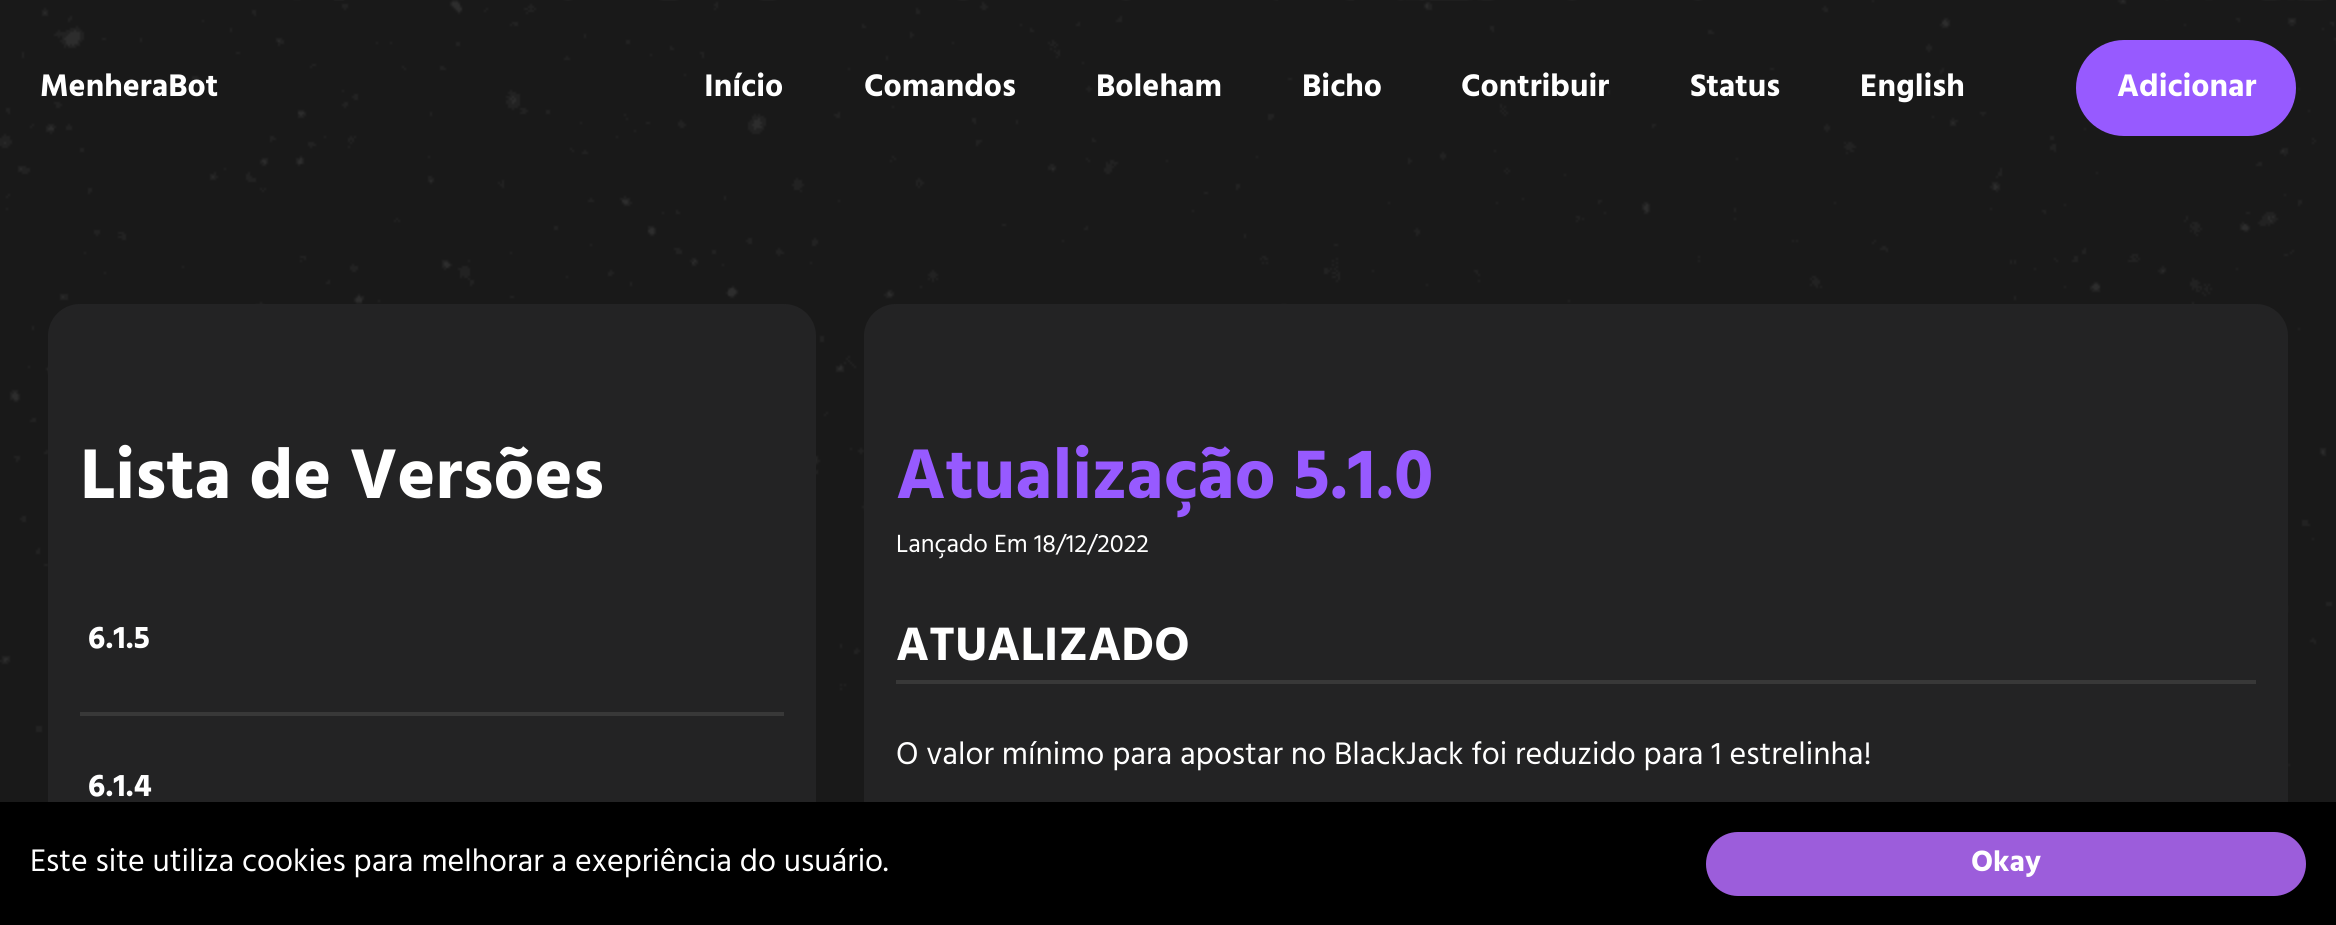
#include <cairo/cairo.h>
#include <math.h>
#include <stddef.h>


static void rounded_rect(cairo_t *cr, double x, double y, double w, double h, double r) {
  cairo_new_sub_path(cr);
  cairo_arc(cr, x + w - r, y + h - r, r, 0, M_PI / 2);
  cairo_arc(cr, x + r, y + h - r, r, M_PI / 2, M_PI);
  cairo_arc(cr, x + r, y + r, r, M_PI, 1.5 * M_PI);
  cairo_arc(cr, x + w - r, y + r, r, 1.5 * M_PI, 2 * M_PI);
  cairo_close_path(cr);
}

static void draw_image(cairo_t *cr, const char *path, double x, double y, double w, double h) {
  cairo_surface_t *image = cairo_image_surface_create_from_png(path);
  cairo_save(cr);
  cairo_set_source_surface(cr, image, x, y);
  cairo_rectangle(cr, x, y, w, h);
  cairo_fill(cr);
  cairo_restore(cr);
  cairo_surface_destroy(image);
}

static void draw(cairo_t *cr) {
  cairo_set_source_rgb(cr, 25 / 255.0, 25 / 255.0, 25 / 255.0);
  cairo_paint(cr);
  draw_image(cr, "images/1.png", 0, 0, 2336, 802);
  cairo_set_source_rgb(cr, 151 / 255.0, 90 / 255.0, 1);
  rounded_rect(cr, 2076, 40, 220, 96, 48);
  cairo_fill(cr);
  cairo_set_source_rgb(cr, 35 / 255.0, 35 / 255.0, 36 / 255.0);
  rounded_rect(cr, 48, 304, 768, 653, 32);
  cairo_fill(cr);
  cairo_set_source_rgb(cr, 56 / 255.0, 56 / 255.0, 56 / 255.0);
  cairo_rectangle(cr, 80, 712, 704, 4);
  cairo_fill(cr);
  cairo_set_source_rgb(cr, 35 / 255.0, 35 / 255.0, 36 / 255.0);
  rounded_rect(cr, 864, 304, 1424, 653, 32);
  cairo_fill(cr);
  cairo_set_source_rgb(cr, 56 / 255.0, 56 / 255.0, 56 / 255.0);
  cairo_rectangle(cr, 896, 680, 1360, 4);
  cairo_fill(cr);
  cairo_set_source_rgb(cr, 0, 0, 0);
  cairo_rectangle(cr, 0, 802, 2336, 123);
  cairo_fill(cr);
  cairo_set_source_rgb(cr, 156 / 255.0, 93 / 255.0, 219 / 255.0);
  rounded_rect(cr, 1706, 832, 600, 64, 32);
  cairo_fill(cr);
  cairo_select_font_face(cr, "Hind", CAIRO_FONT_SLANT_NORMAL, CAIRO_FONT_WEIGHT_BOLD);
  cairo_set_font_size(cr, 32);
  cairo_set_source_rgb(cr, 1, 1, 1);
  cairo_move_to(cr, 40, 96);
  cairo_show_text(cr, "MenheraBot");
  cairo_move_to(cr, 704, 96);
  cairo_show_text(cr, "Início");
  cairo_move_to(cr, 864, 96);
  cairo_show_text(cr, "Comandos");
  cairo_move_to(cr, 1096, 96);
  cairo_show_text(cr, "Boleham");
  cairo_move_to(cr, 1302, 96);
  cairo_show_text(cr, "Bicho");
  cairo_move_to(cr, 1461, 96);
  cairo_show_text(cr, "Contribuir");
  cairo_move_to(cr, 1690, 96);
  cairo_show_text(cr, "Status");
  cairo_move_to(cr, 1860, 96);
  cairo_show_text(cr, "English");
  cairo_move_to(cr, 2117, 96);
  cairo_show_text(cr, "Adicionar");
  cairo_set_font_size(cr, 72);
  cairo_move_to(cr, 80, 498);
  cairo_show_text(cr, "Lista de Versões");
  cairo_set_font_size(cr, 32);
  cairo_move_to(cr, 88, 648);
  cairo_show_text(cr, "6.1.5");
  cairo_move_to(cr, 88, 796);
  cairo_show_text(cr, "6.1.4");
  cairo_set_font_size(cr, 72);
  cairo_set_source_rgb(cr, 151 / 255.0, 90 / 255.0, 1);
  cairo_move_to(cr, 896, 498);
  cairo_show_text(cr, "Atualização 5.1.0");
  cairo_select_font_face(cr, "Hind", CAIRO_FONT_SLANT_NORMAL, CAIRO_FONT_WEIGHT_NORMAL);
  cairo_set_font_size(cr, 25.5);
  cairo_set_source_rgb(cr, 1, 1, 1);
  cairo_move_to(cr, 896, 552);
  cairo_show_text(cr, "Lançado Em 18/12/2022");
  cairo_select_font_face(cr, "Hind", CAIRO_FONT_SLANT_NORMAL, CAIRO_FONT_WEIGHT_BOLD);
  cairo_set_font_size(cr, 48);
  cairo_move_to(cr, 896, 660);
  cairo_show_text(cr, "ATUALIZADO");
  cairo_select_font_face(cr, "Hind", CAIRO_FONT_SLANT_NORMAL, CAIRO_FONT_WEIGHT_NORMAL);
  cairo_set_font_size(cr, 32);
  cairo_move_to(cr, 896, 764);
  cairo_show_text(cr, "O valor mínimo para apostar no BlackJack foi reduzido para 1 estrelinha!");
  cairo_move_to(cr, 30, 871);
  cairo_show_text(cr, "Este site utiliza cookies para melhorar a exepriência do usuário.");
  cairo_select_font_face(cr, "Hind", CAIRO_FONT_SLANT_NORMAL, CAIRO_FONT_WEIGHT_BOLD);
  cairo_set_font_size(cr, 30);
  cairo_move_to(cr, 1971, 871);
  cairo_show_text(cr, "Okay");
}

int main(void) {
  cairo_surface_t *surface = cairo_image_surface_create(CAIRO_FORMAT_RGB24, 2336, 925);
  cairo_t *cr = cairo_create(surface);
  cairo_font_options_t *options = cairo_font_options_create();
  cairo_font_options_set_hint_metrics(options, CAIRO_HINT_METRICS_OFF);
  cairo_font_options_set_hint_style(options, CAIRO_HINT_STYLE_NONE);
  cairo_set_font_options(cr, options);
  cairo_set_miter_limit(cr, 4);
  draw(cr);
  cairo_surface_write_to_png(surface, "out.png");
  cairo_font_options_destroy(options);
  cairo_destroy(cr);
  cairo_surface_destroy(surface);
  return 0;
}
